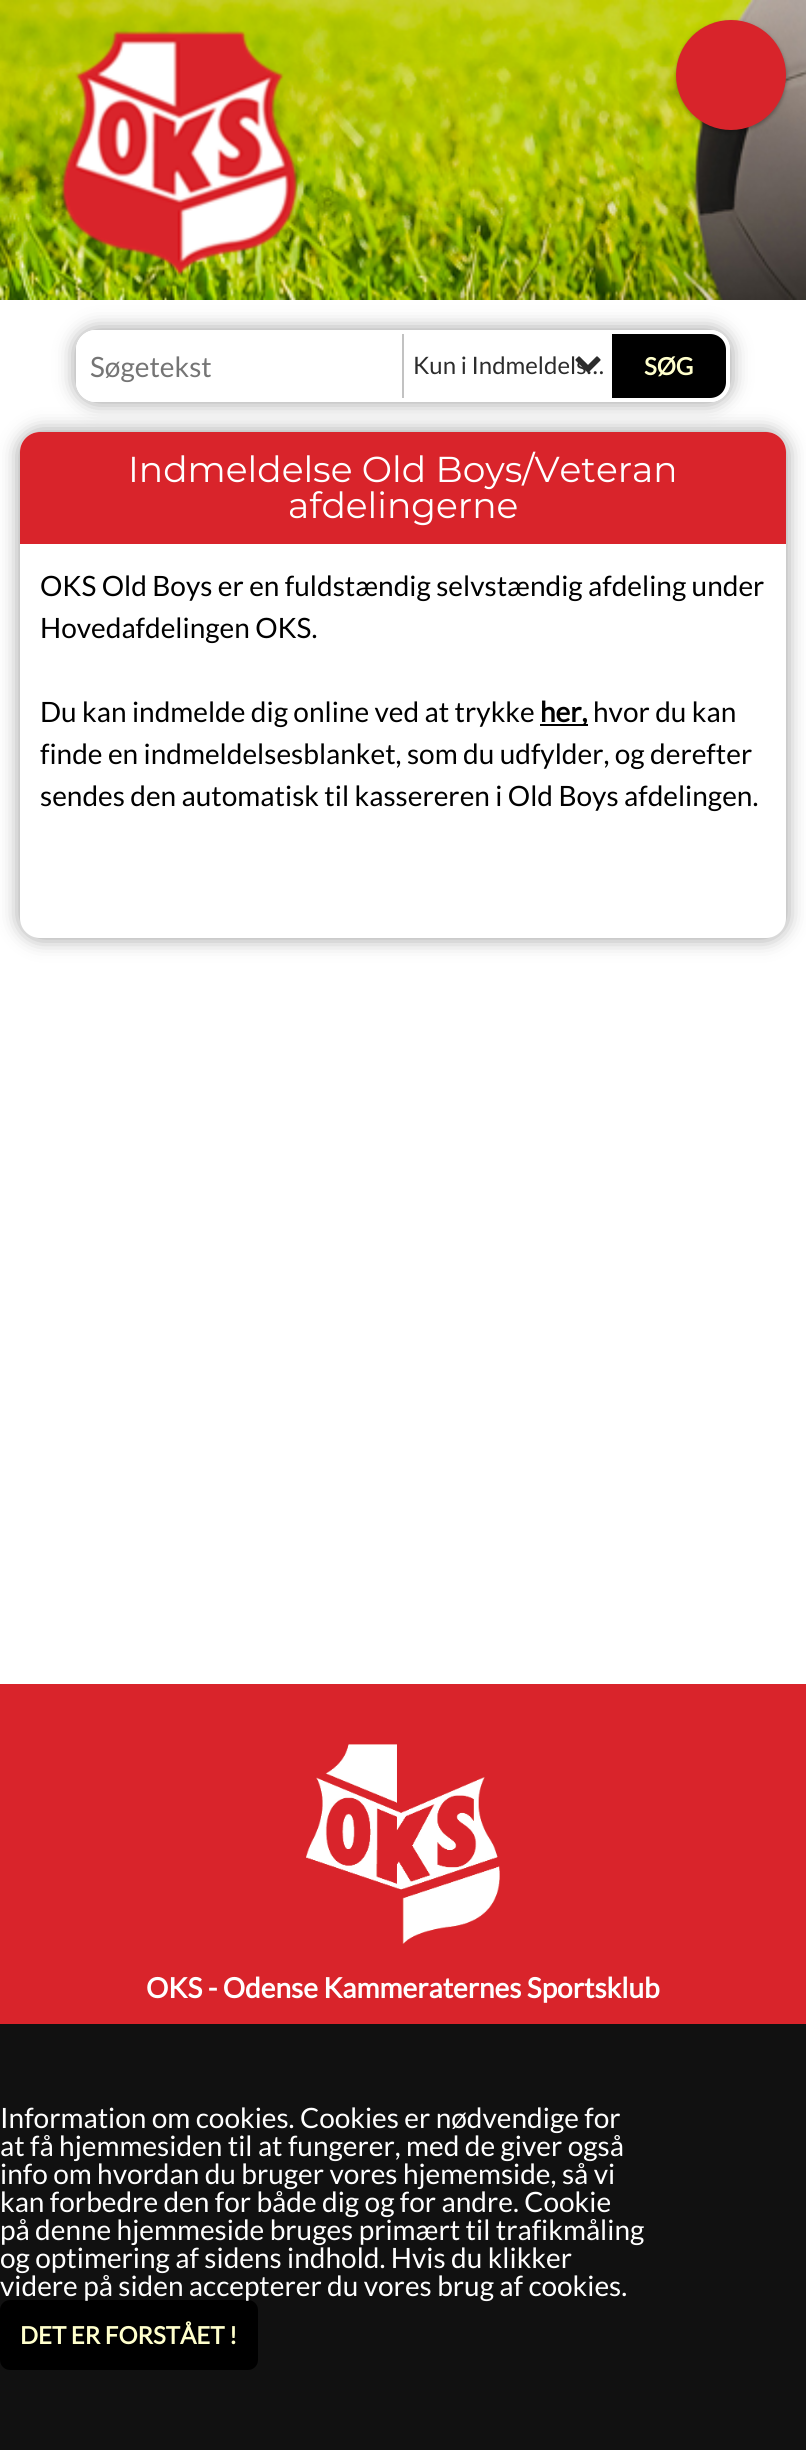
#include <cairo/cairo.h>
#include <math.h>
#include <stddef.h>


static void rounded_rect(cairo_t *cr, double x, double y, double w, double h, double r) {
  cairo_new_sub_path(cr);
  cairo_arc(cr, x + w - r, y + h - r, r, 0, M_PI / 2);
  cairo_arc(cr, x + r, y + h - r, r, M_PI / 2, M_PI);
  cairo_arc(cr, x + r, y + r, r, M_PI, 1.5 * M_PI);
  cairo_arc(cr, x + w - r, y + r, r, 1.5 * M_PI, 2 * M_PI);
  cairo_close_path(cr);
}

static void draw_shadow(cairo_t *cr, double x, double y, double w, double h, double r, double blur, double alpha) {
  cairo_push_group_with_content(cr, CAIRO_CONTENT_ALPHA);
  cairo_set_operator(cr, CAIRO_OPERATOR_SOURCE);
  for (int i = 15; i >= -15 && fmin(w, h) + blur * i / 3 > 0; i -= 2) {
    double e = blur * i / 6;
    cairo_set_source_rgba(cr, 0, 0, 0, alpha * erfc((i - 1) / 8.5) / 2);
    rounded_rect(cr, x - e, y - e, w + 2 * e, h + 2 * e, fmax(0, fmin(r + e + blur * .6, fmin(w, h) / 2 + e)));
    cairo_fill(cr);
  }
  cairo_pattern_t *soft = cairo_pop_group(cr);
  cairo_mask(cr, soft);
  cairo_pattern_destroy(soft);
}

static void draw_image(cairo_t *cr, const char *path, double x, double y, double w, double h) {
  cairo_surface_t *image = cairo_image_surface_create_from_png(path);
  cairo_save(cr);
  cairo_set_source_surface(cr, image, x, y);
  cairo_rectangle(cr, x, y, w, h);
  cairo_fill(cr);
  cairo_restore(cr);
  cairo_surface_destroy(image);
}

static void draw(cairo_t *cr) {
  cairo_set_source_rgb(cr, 217 / 255.0, 36 / 255.0, 43 / 255.0);
  cairo_paint(cr);
  cairo_set_source_rgb(cr, 1, 1, 1);
  cairo_rectangle(cr, 0, 300, 806, 1384);
  cairo_fill(cr);
  cairo_set_source_rgb(cr, 48 / 255.0, 48 / 255.0, 48 / 255.0);
  draw_shadow(cr, 20, 432, 766, 506, 20, 10, 0.5);
  cairo_set_source_rgb(cr, 1, 1, 1);
  rounded_rect(cr, 20, 432, 766, 506, 20);
  cairo_fill(cr);
  cairo_set_source_rgb(cr, 217 / 255.0, 36 / 255.0, 43 / 255.0);
  cairo_new_path(cr);
  cairo_move_to(cr, 40, 432);
  cairo_line_to(cr, 766, 432);
  cairo_curve_to(cr, 777, 432, 786, 441, 786, 452);
  cairo_line_to(cr, 786, 544);
  cairo_line_to(cr, 20, 544);
  cairo_line_to(cr, 20, 452);
  cairo_curve_to(cr, 20, 441, 29, 432, 40, 432);
  cairo_close_path(cr);
  cairo_fill(cr);
  cairo_save(cr);
  cairo_set_fill_rule(cr, CAIRO_FILL_RULE_EVEN_ODD);
  cairo_new_path(cr);
  cairo_move_to(cr, 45, 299);
  cairo_line_to(cr, 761, 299);
  cairo_line_to(cr, 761, 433);
  cairo_line_to(cr, 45, 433);
  cairo_close_path(cr);
  cairo_move_to(cr, 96, 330);
  cairo_line_to(cr, 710, 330);
  cairo_curve_to(cr, 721, 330, 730, 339, 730, 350);
  cairo_line_to(cr, 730, 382);
  cairo_curve_to(cr, 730, 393, 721, 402, 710, 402);
  cairo_line_to(cr, 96, 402);
  cairo_curve_to(cr, 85, 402, 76, 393, 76, 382);
  cairo_line_to(cr, 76, 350);
  cairo_curve_to(cr, 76, 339, 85, 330, 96, 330);
  cairo_close_path(cr);
  cairo_clip(cr);
  cairo_set_source_rgb(cr, 48 / 255.0, 48 / 255.0, 48 / 255.0);
  draw_shadow(cr, 76, 330, 654, 72, 20, 10, 0.5);
  cairo_restore(cr);
  draw_image(cr, "images/1.png", 0, 0, 806, 300);
  draw_image(cr, "images/2.png", 61, 31, 237, 245);
  cairo_set_source_rgb(cr, 0, 0, 0);
  draw_shadow(cr, 676, 22, 110, 110, 55, 2, 0.24);
  draw_shadow(cr, 676, 22, 110, 110, 55, 3, 0.12);
  cairo_set_source_rgb(cr, 216 / 255.0, 36 / 255.0, 43 / 255.0);
  cairo_arc(cr, 731, 75, 55, 0, 2 * M_PI);
  cairo_fill(cr);
  rounded_rect(cr, 78, 332, 650, 68, 18);
  cairo_set_source_rgb(cr, 1, 1, 1);
  cairo_set_line_width(cr, 4);
  cairo_stroke(cr);
  cairo_set_source_rgb(cr, 194 / 255.0, 194 / 255.0, 194 / 255.0);
  cairo_rectangle(cr, 402, 334, 2, 64);
  cairo_fill(cr);
  cairo_set_source_rgb(cr, 0, 0, 0);
  cairo_new_path(cr);
  cairo_move_to(cr, 612, 334);
  cairo_line_to(cr, 710, 334);
  cairo_curve_to(cr, 719, 334, 726, 341, 726, 350);
  cairo_line_to(cr, 726, 382);
  cairo_curve_to(cr, 726, 391, 719, 398, 710, 398);
  cairo_line_to(cr, 612, 398);
  cairo_close_path(cr);
  cairo_fill(cr);
  cairo_rectangle(cr, 540, 724, 48, 2);
  cairo_fill(cr);
  draw_image(cr, "images/4.png", 306, 1744, 194, 200);
  cairo_set_source_rgb(cr, 17 / 255.0, 17 / 255.0, 17 / 255.0);
  cairo_rectangle(cr, 0, 2024, 806, 426);
  cairo_fill(cr);
  cairo_set_source_rgb(cr, 0, 0, 0);
  rounded_rect(cr, 0, 2300, 258, 70, 10);
  cairo_fill(cr);
  cairo_select_font_face(cr, "Lato", CAIRO_FONT_SLANT_NORMAL, CAIRO_FONT_WEIGHT_NORMAL);
  cairo_set_font_size(cr, 28);
  cairo_set_source_rgb(cr, 117 / 255.0, 117 / 255.0, 117 / 255.0);
  cairo_move_to(cr, 90, 377);
  cairo_show_text(cr, "Søgetekst");
  cairo_set_font_size(cr, 24);
  cairo_set_source_rgb(cr, 44 / 255.0, 44 / 255.0, 44 / 255.0);
  cairo_move_to(cr, 413, 374);
  cairo_show_text(cr, "Kun i Indmeldels…");
  draw_image(cr, "images/3.png", 575, 356, 26, 17);
  cairo_select_font_face(cr, "Lato", CAIRO_FONT_SLANT_NORMAL, CAIRO_FONT_WEIGHT_BOLD);
  cairo_set_source_rgb(cr, 1, 1, 204 / 255.0);
  cairo_move_to(cr, 644, 375);
  cairo_show_text(cr, "SØG");
  cairo_select_font_face(cr, "Montserrat Thin", CAIRO_FONT_SLANT_NORMAL, CAIRO_FONT_WEIGHT_NORMAL);
  cairo_set_font_size(cr, 36);
  cairo_set_source_rgb(cr, 1, 1, 1);
  cairo_move_to(cr, 128, 482);
  cairo_show_text(cr, "Indmeldelse Old Boys/Veteran");
  cairo_move_to(cr, 288, 518);
  cairo_show_text(cr, "afdelingerne");
  cairo_select_font_face(cr, "Lato", CAIRO_FONT_SLANT_NORMAL, CAIRO_FONT_WEIGHT_NORMAL);
  cairo_set_font_size(cr, 28);
  cairo_set_source_rgb(cr, 0, 0, 0);
  cairo_move_to(cr, 40, 596);
  cairo_show_text(cr, "OKS Old Boys er en fuldstændig selvstændig afdeling under");
  cairo_move_to(cr, 40, 638);
  cairo_show_text(cr, "Hovedafdelingen OKS.");
  cairo_move_to(cr, 40, 722);
  cairo_show_text(cr, "Du kan indmelde dig online ved at trykke");
  cairo_select_font_face(cr, "Lato", CAIRO_FONT_SLANT_NORMAL, CAIRO_FONT_WEIGHT_BOLD);
  cairo_move_to(cr, 540, 722);
  cairo_show_text(cr, "her,");
  cairo_select_font_face(cr, "Lato", CAIRO_FONT_SLANT_NORMAL, CAIRO_FONT_WEIGHT_NORMAL);
  cairo_move_to(cr, 593, 722);
  cairo_show_text(cr, "hvor du kan");
  cairo_move_to(cr, 40, 764);
  cairo_show_text(cr, "finde en indmeldelsesblanket, som du udfylder, og derefter");
  cairo_move_to(cr, 40, 806);
  cairo_show_text(cr, "sendes den automatisk til kassereren i Old Boys afdelingen.");
  cairo_select_font_face(cr, "Lato", CAIRO_FONT_SLANT_NORMAL, CAIRO_FONT_WEIGHT_BOLD);
  cairo_set_source_rgb(cr, 1, 1, 1);
  cairo_move_to(cr, 146, 1998);
  cairo_show_text(cr, "OKS - Odense Kammeraternes Sportsklub");
  cairo_select_font_face(cr, "Lato", CAIRO_FONT_SLANT_NORMAL, CAIRO_FONT_WEIGHT_NORMAL);
  cairo_move_to(cr, 0, 2128);
  cairo_show_text(cr, "Information om cookies. Cookies er nødvendige for");
  cairo_move_to(cr, 0, 2156);
  cairo_show_text(cr, "at få hjemmesiden til at fungerer, med de giver også");
  cairo_move_to(cr, 0, 2184);
  cairo_show_text(cr, "info om hvordan du bruger vores hjememside, så vi");
  cairo_move_to(cr, 0, 2212);
  cairo_show_text(cr, "kan forbedre den for både dig og for andre. Cookie");
  cairo_move_to(cr, 0, 2240);
  cairo_show_text(cr, "på denne hjemmeside bruges primært til trafikmåling");
  cairo_move_to(cr, 0, 2268);
  cairo_show_text(cr, "og optimering af sidens indhold. Hvis du klikker");
  cairo_move_to(cr, 0, 2296);
  cairo_show_text(cr, "videre på siden accepterer du vores brug af cookies.");
  cairo_select_font_face(cr, "Lato", CAIRO_FONT_SLANT_NORMAL, CAIRO_FONT_WEIGHT_BOLD);
  cairo_set_font_size(cr, 24);
  cairo_set_source_rgb(cr, 1, 1, 204 / 255.0);
  cairo_move_to(cr, 20, 2344);
  cairo_show_text(cr, "DET ER FORSTÅET !");
}

int main(void) {
  cairo_surface_t *surface = cairo_image_surface_create(CAIRO_FORMAT_RGB24, 806, 2450);
  cairo_t *cr = cairo_create(surface);
  cairo_font_options_t *options = cairo_font_options_create();
  cairo_font_options_set_hint_metrics(options, CAIRO_HINT_METRICS_OFF);
  cairo_font_options_set_hint_style(options, CAIRO_HINT_STYLE_NONE);
  cairo_set_font_options(cr, options);
  cairo_set_miter_limit(cr, 4);
  draw(cr);
  cairo_surface_write_to_png(surface, "out.png");
  cairo_font_options_destroy(options);
  cairo_destroy(cr);
  cairo_surface_destroy(surface);
  return 0;
}
